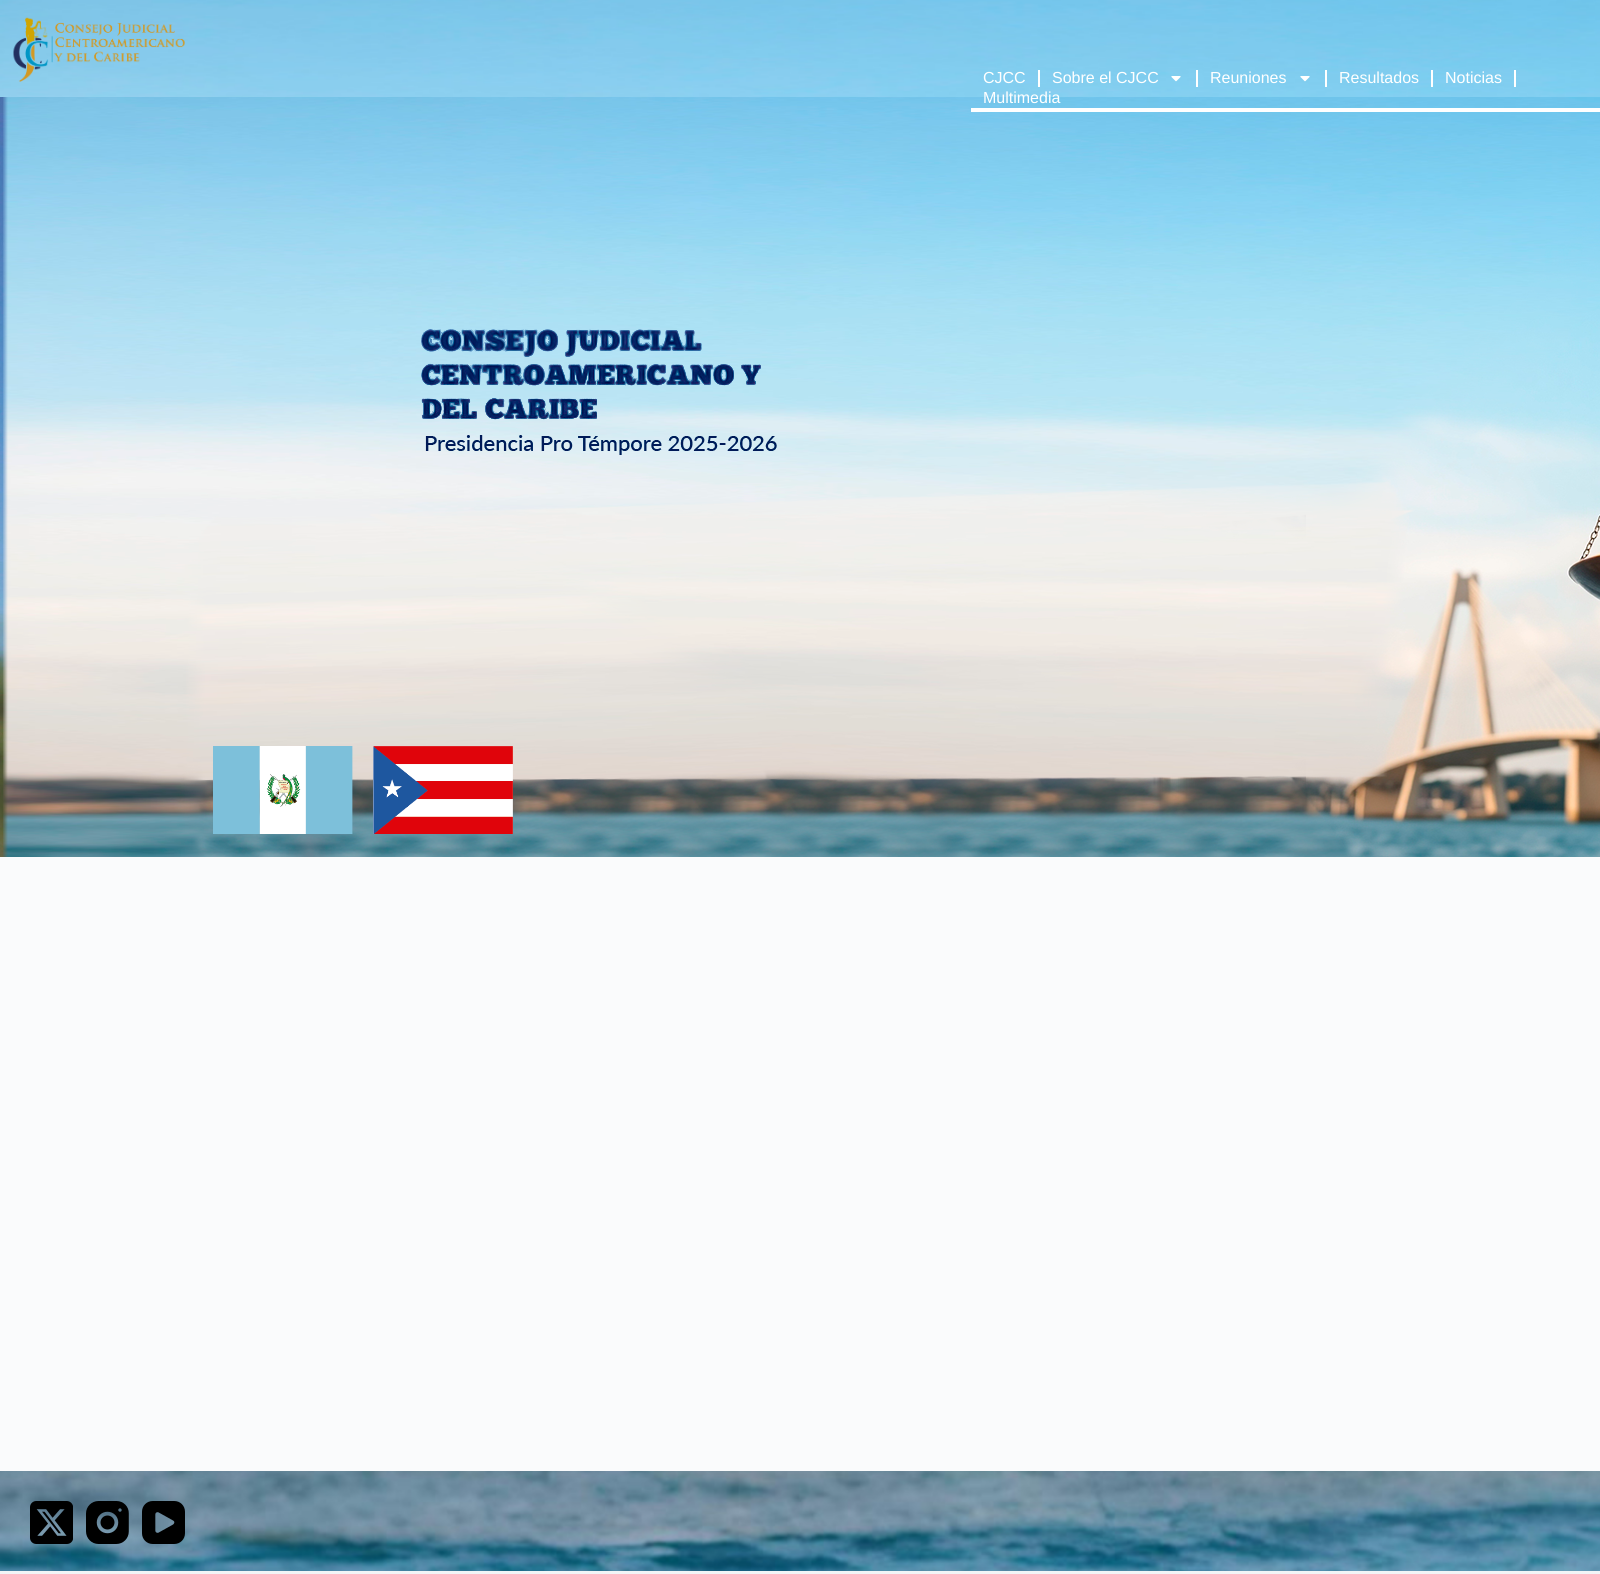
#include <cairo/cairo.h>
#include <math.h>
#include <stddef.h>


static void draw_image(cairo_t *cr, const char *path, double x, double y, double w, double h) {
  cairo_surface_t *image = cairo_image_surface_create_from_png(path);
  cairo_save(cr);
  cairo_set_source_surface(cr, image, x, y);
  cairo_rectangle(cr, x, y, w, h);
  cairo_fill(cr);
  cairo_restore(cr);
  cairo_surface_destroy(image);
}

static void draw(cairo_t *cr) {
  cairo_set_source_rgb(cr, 250 / 255.0, 251 / 255.0, 252 / 255.0);
  cairo_paint(cr);
  draw_image(cr, "images/1.png", 0, 0, 1600, 97);
  draw_image(cr, "images/2.png", 13, 17, 172, 65);
  draw_image(cr, "images/5.png", 0, 97, 1600, 760);
  cairo_set_source_rgb(cr, 1, 1, 1);
  cairo_rectangle(cr, 971, 108, 629, 4);
  cairo_fill(cr);
  cairo_rectangle(cr, 1038, 70, 2, 17);
  cairo_fill(cr);
  draw_image(cr, "images/3.png", 1171, 76, 10, 6);
  cairo_rectangle(cr, 1196, 70, 2, 17);
  cairo_fill(cr);
  draw_image(cr, "images/4.png", 1300, 76, 10, 6);
  cairo_rectangle(cr, 1325, 70, 2, 17);
  cairo_fill(cr);
  cairo_rectangle(cr, 1431, 70, 2, 17);
  cairo_fill(cr);
  cairo_rectangle(cr, 1514, 70, 2, 17);
  cairo_fill(cr);
  draw_image(cr, "images/6.png", 213, 746, 140, 88);
  draw_image(cr, "images/7.png", 373, 746, 140, 88);
  cairo_set_source_rgb(cr, 242 / 255.0, 245 / 255.0, 247 / 255.0);
  cairo_rectangle(cr, 0, 1571, 1600, 3);
  cairo_fill(cr);
  draw_image(cr, "images/8.png", 0, 1471, 1600, 100);
  draw_image(cr, "images/9.png", 30, 1501, 43, 43);
  draw_image(cr, "images/10.png", 86, 1501, 43, 43);
  draw_image(cr, "images/11.png", 142, 1501, 43, 43);
  cairo_select_font_face(cr, "Liberation Sans", CAIRO_FONT_SLANT_NORMAL, CAIRO_FONT_WEIGHT_NORMAL);
  cairo_set_font_size(cr, 16);
  cairo_set_source_rgb(cr, 1, 1, 1);
  cairo_move_to(cr, 983, 83);
  cairo_show_text(cr, "CJCC");
  cairo_move_to(cr, 1052, 83);
  cairo_show_text(cr, "Sobre el CJCC");
  cairo_move_to(cr, 1210, 83);
  cairo_show_text(cr, "Reuniones");
  cairo_move_to(cr, 1339, 83);
  cairo_show_text(cr, "Resultados");
  cairo_move_to(cr, 1445, 83);
  cairo_show_text(cr, "Noticias");
  cairo_move_to(cr, 983, 103);
  cairo_show_text(cr, "Multimedia");
}

int main(void) {
  cairo_surface_t *surface = cairo_image_surface_create(CAIRO_FORMAT_RGB24, 1600, 1574);
  cairo_t *cr = cairo_create(surface);
  cairo_font_options_t *options = cairo_font_options_create();
  cairo_font_options_set_hint_metrics(options, CAIRO_HINT_METRICS_OFF);
  cairo_font_options_set_hint_style(options, CAIRO_HINT_STYLE_NONE);
  cairo_set_font_options(cr, options);
  cairo_set_miter_limit(cr, 4);
  draw(cr);
  cairo_surface_write_to_png(surface, "out.png");
  cairo_font_options_destroy(options);
  cairo_destroy(cr);
  cairo_surface_destroy(surface);
  return 0;
}
